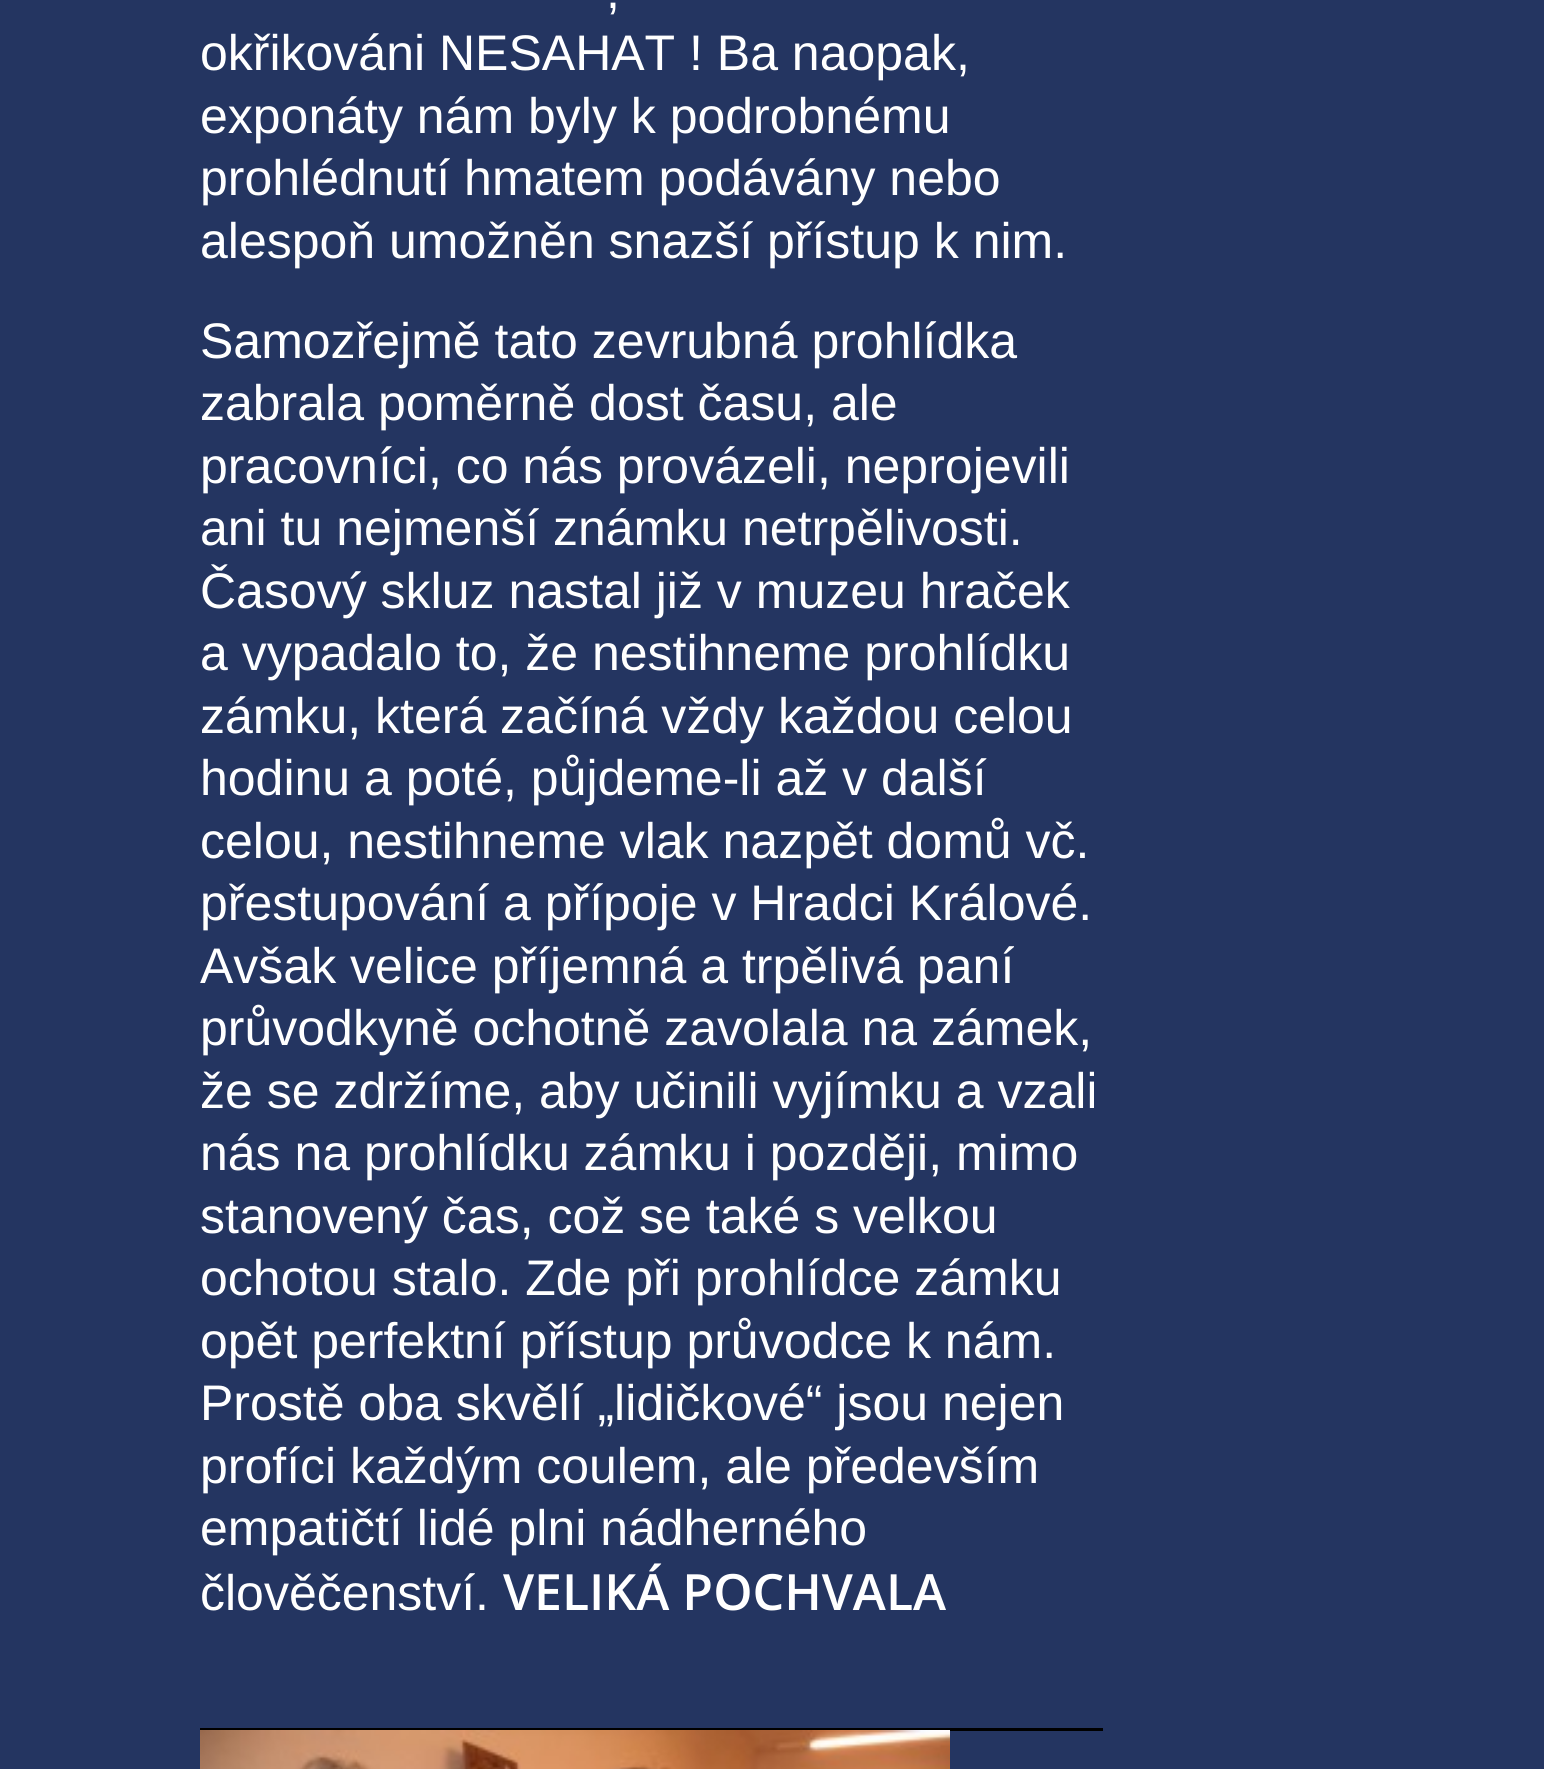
#include <cairo/cairo.h>
#include <math.h>
#include <stddef.h>


static void draw_image(cairo_t *cr, const char *path, double x, double y, double w, double h) {
  cairo_surface_t *image = cairo_image_surface_create_from_png(path);
  cairo_save(cr);
  cairo_set_source_surface(cr, image, x, y);
  cairo_rectangle(cr, x, y, w, h);
  cairo_fill(cr);
  cairo_restore(cr);
  cairo_surface_destroy(image);
}

static void draw(cairo_t *cr) {
  cairo_set_source_rgb(cr, 36 / 255.0, 53 / 255.0, 97 / 255.0);
  cairo_paint(cr);
  cairo_set_source_rgb(cr, 0, 0, 0);
  cairo_rectangle(cr, 200, 1728, 903, 3);
  cairo_fill(cr);
  draw_image(cr, "images/1.png", 200, 1730, 750, 39);
  cairo_select_font_face(cr, "Liberation Sans", CAIRO_FONT_SLANT_NORMAL, CAIRO_FONT_WEIGHT_NORMAL);
  cairo_set_font_size(cr, 50);
  cairo_set_source_rgb(cr, 1, 1, 1);
  cairo_move_to(cr, 606, 8);
  cairo_show_text(cr, ",");
  cairo_move_to(cr, 200, 70);
  cairo_show_text(cr, "okřikováni NESAHAT ! Ba naopak,");
  cairo_move_to(cr, 200, 133);
  cairo_show_text(cr, "exponáty nám byly k podrobnému");
  cairo_move_to(cr, 200, 195);
  cairo_show_text(cr, "prohlédnutí hmatem podávány nebo");
  cairo_move_to(cr, 200, 258);
  cairo_show_text(cr, "alespoň umožněn snazší přístup k nim.");
  cairo_move_to(cr, 200, 358);
  cairo_show_text(cr, "Samozřejmě tato zevrubná prohlídka");
  cairo_move_to(cr, 200, 420);
  cairo_show_text(cr, "zabrala poměrně dost času, ale");
  cairo_move_to(cr, 200, 483);
  cairo_show_text(cr, "pracovníci, co nás provázeli, neprojevili");
  cairo_move_to(cr, 200, 545);
  cairo_show_text(cr, "ani tu nejmenší známku netrpělivosti.");
  cairo_move_to(cr, 200, 608);
  cairo_show_text(cr, "Časový skluz nastal již v muzeu hraček");
  cairo_move_to(cr, 200, 670);
  cairo_show_text(cr, "a vypadalo to, že nestihneme prohlídku");
  cairo_move_to(cr, 200, 733);
  cairo_show_text(cr, "zámku, která začíná vždy každou celou");
  cairo_move_to(cr, 200, 795);
  cairo_show_text(cr, "hodinu a poté, půjdeme-li až v další");
  cairo_move_to(cr, 200, 858);
  cairo_show_text(cr, "celou, nestihneme vlak nazpět domů vč.");
  cairo_move_to(cr, 200, 920);
  cairo_show_text(cr, "přestupování a přípoje v Hradci Králové.");
  cairo_move_to(cr, 200, 983);
  cairo_show_text(cr, "Avšak velice příjemná a trpělivá paní");
  cairo_move_to(cr, 200, 1045);
  cairo_show_text(cr, "průvodkyně ochotně zavolala na zámek,");
  cairo_move_to(cr, 200, 1108);
  cairo_show_text(cr, "že se zdržíme, aby učinili vyjímku a vzali");
  cairo_move_to(cr, 200, 1170);
  cairo_show_text(cr, "nás na prohlídku zámku i později, mimo");
  cairo_move_to(cr, 200, 1233);
  cairo_show_text(cr, "stanovený čas, což se také s velkou");
  cairo_move_to(cr, 200, 1295);
  cairo_show_text(cr, "ochotou stalo. Zde při prohlídce zámku");
  cairo_move_to(cr, 200, 1358);
  cairo_show_text(cr, "opět perfektní přístup průvodce k nám.");
  cairo_move_to(cr, 200, 1420);
  cairo_show_text(cr, "Prostě oba skvělí „lidičkové“ jsou nejen");
  cairo_move_to(cr, 200, 1483);
  cairo_show_text(cr, "profíci každým coulem, ale především");
  cairo_move_to(cr, 200, 1545);
  cairo_show_text(cr, "empatičtí lidé plni nádherného");
  cairo_move_to(cr, 200, 1610);
  cairo_show_text(cr, "člověčenství.");
  cairo_select_font_face(cr, "Open Sans SemiBold", CAIRO_FONT_SLANT_NORMAL, CAIRO_FONT_WEIGHT_NORMAL);
  cairo_move_to(cr, 503, 1610);
  cairo_show_text(cr, "VELIKÁ POCHVALA");
}

int main(void) {
  cairo_surface_t *surface = cairo_image_surface_create(CAIRO_FORMAT_RGB24, 1544, 1769);
  cairo_t *cr = cairo_create(surface);
  cairo_font_options_t *options = cairo_font_options_create();
  cairo_font_options_set_hint_metrics(options, CAIRO_HINT_METRICS_OFF);
  cairo_font_options_set_hint_style(options, CAIRO_HINT_STYLE_NONE);
  cairo_set_font_options(cr, options);
  cairo_set_miter_limit(cr, 4);
  draw(cr);
  cairo_surface_write_to_png(surface, "out.png");
  cairo_font_options_destroy(options);
  cairo_destroy(cr);
  cairo_surface_destroy(surface);
  return 0;
}
